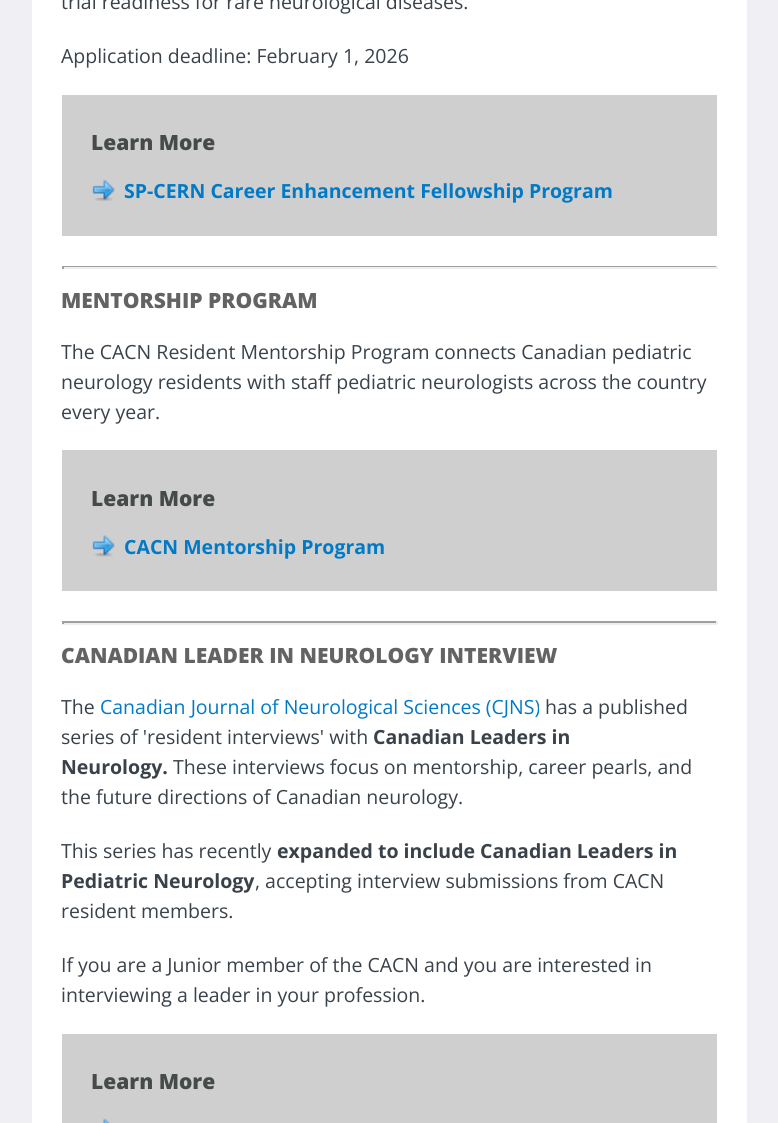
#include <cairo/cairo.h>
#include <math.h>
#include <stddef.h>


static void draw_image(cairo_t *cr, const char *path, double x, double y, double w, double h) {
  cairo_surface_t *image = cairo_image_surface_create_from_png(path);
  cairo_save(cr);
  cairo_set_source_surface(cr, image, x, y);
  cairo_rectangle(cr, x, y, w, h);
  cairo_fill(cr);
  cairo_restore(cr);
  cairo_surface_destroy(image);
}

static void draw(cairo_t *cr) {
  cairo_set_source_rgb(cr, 240 / 255.0, 240 / 255.0, 244 / 255.0);
  cairo_paint(cr);
  cairo_set_source_rgb(cr, 1, 1, 1);
  cairo_rectangle(cr, 32, 0, 715, 1123);
  cairo_fill(cr);
  cairo_set_source_rgb(cr, 208 / 255.0, 207 / 255.0, 207 / 255.0);
  cairo_rectangle(cr, 62, 95, 655, 141);
  cairo_fill(cr);
  draw_image(cr, "images/1.png", 92, 179, 23, 22);
  cairo_set_source_rgb(cr, 159 / 255.0, 159 / 255.0, 159 / 255.0);
  cairo_rectangle(cr, 62, 266, 655, 1);
  cairo_fill(cr);
  cairo_set_source_rgb(cr, 238 / 255.0, 238 / 255.0, 238 / 255.0);
  cairo_rectangle(cr, 716, 266, 2, 3);
  cairo_fill(cr);
  cairo_rectangle(cr, 62, 267, 655, 2);
  cairo_fill(cr);
  cairo_set_source_rgb(cr, 159 / 255.0, 159 / 255.0, 159 / 255.0);
  cairo_rectangle(cr, 62, 266, 2, 3);
  cairo_fill(cr);
  cairo_set_source_rgb(cr, 208 / 255.0, 207 / 255.0, 207 / 255.0);
  cairo_rectangle(cr, 62, 450, 655, 141);
  cairo_fill(cr);
  draw_image(cr, "images/2.png", 92, 535, 23, 22);
  cairo_set_source_rgb(cr, 159 / 255.0, 159 / 255.0, 159 / 255.0);
  cairo_rectangle(cr, 62, 621, 655, 2);
  cairo_fill(cr);
  cairo_set_source_rgb(cr, 238 / 255.0, 238 / 255.0, 238 / 255.0);
  cairo_rectangle(cr, 716, 621, 2, 3);
  cairo_fill(cr);
  cairo_rectangle(cr, 62, 623, 655, 2);
  cairo_fill(cr);
  cairo_set_source_rgb(cr, 159 / 255.0, 159 / 255.0, 159 / 255.0);
  cairo_rectangle(cr, 62, 621, 2, 3);
  cairo_fill(cr);
  cairo_set_source_rgb(cr, 208 / 255.0, 207 / 255.0, 207 / 255.0);
  cairo_rectangle(cr, 62, 1034, 655, 89);
  cairo_fill(cr);
  draw_image(cr, "images/3.png", 103, 1118, 7, 5);
  cairo_select_font_face(cr, "Open Sans", CAIRO_FONT_SLANT_NORMAL, CAIRO_FONT_WEIGHT_NORMAL);
  cairo_set_font_size(cr, 19.5);
  cairo_set_source_rgb(cr, 57 / 255.0, 66 / 255.0, 74 / 255.0);
  cairo_move_to(cr, 61, 9);
  cairo_show_text(cr, "trial readiness for rare neurological diseases.");
  cairo_move_to(cr, 61, 63);
  cairo_show_text(cr, "Application deadline: February 1, 2026");
  cairo_select_font_face(cr, "Open Sans ExtraBold", CAIRO_FONT_SLANT_NORMAL, CAIRO_FONT_WEIGHT_NORMAL);
  cairo_set_font_size(cr, 21);
  cairo_set_source_rgb(cr, 68 / 255.0, 75 / 255.0, 73 / 255.0);
  cairo_move_to(cr, 91, 150);
  cairo_show_text(cr, "Learn More");
  cairo_select_font_face(cr, "Open Sans", CAIRO_FONT_SLANT_NORMAL, CAIRO_FONT_WEIGHT_BOLD);
  cairo_set_font_size(cr, 19.5);
  cairo_set_source_rgb(cr, 0, 122 / 255.0, 198 / 255.0);
  cairo_move_to(cr, 124, 198);
  cairo_show_text(cr, "SP-CERN Career Enhancement Fellowship Program");
  cairo_select_font_face(cr, "Open Sans ExtraBold", CAIRO_FONT_SLANT_NORMAL, CAIRO_FONT_WEIGHT_NORMAL);
  cairo_set_font_size(cr, 21);
  cairo_set_source_rgb(cr, 99 / 255.0, 99 / 255.0, 99 / 255.0);
  cairo_move_to(cr, 61, 308);
  cairo_show_text(cr, "MENTORSHIP PROGRAM");
  cairo_select_font_face(cr, "Open Sans", CAIRO_FONT_SLANT_NORMAL, CAIRO_FONT_WEIGHT_NORMAL);
  cairo_set_font_size(cr, 19.5);
  cairo_set_source_rgb(cr, 57 / 255.0, 66 / 255.0, 74 / 255.0);
  cairo_move_to(cr, 61, 359);
  cairo_show_text(cr, "The CACN Resident Mentorship Program connects Canadian pediatric");
  cairo_move_to(cr, 61, 389);
  cairo_show_text(cr, "neurology residents with staff pediatric neurologists across the country");
  cairo_move_to(cr, 61, 419);
  cairo_show_text(cr, "every year.");
  cairo_select_font_face(cr, "Open Sans ExtraBold", CAIRO_FONT_SLANT_NORMAL, CAIRO_FONT_WEIGHT_NORMAL);
  cairo_set_font_size(cr, 21);
  cairo_set_source_rgb(cr, 68 / 255.0, 75 / 255.0, 73 / 255.0);
  cairo_move_to(cr, 91, 506);
  cairo_show_text(cr, "Learn More");
  cairo_select_font_face(cr, "Open Sans", CAIRO_FONT_SLANT_NORMAL, CAIRO_FONT_WEIGHT_BOLD);
  cairo_set_font_size(cr, 19.5);
  cairo_set_source_rgb(cr, 0, 122 / 255.0, 198 / 255.0);
  cairo_move_to(cr, 124, 554);
  cairo_show_text(cr, "CACN Mentorship Program");
  cairo_select_font_face(cr, "Open Sans ExtraBold", CAIRO_FONT_SLANT_NORMAL, CAIRO_FONT_WEIGHT_NORMAL);
  cairo_set_font_size(cr, 21);
  cairo_set_source_rgb(cr, 99 / 255.0, 99 / 255.0, 99 / 255.0);
  cairo_move_to(cr, 61, 663);
  cairo_show_text(cr, "CANADIAN LEADER IN NEUROLOGY INTERVIEW");
  cairo_select_font_face(cr, "Open Sans", CAIRO_FONT_SLANT_NORMAL, CAIRO_FONT_WEIGHT_NORMAL);
  cairo_set_font_size(cr, 19.5);
  cairo_set_source_rgb(cr, 57 / 255.0, 66 / 255.0, 74 / 255.0);
  cairo_move_to(cr, 61, 714);
  cairo_show_text(cr, "The");
  cairo_set_source_rgb(cr, 0, 122 / 255.0, 198 / 255.0);
  cairo_move_to(cr, 100, 714);
  cairo_show_text(cr, "Canadian Journal of Neurological Sciences (CJNS)");
  cairo_set_source_rgb(cr, 57 / 255.0, 66 / 255.0, 74 / 255.0);
  cairo_move_to(cr, 545, 714);
  cairo_show_text(cr, "has a published");
  cairo_move_to(cr, 61, 744);
  cairo_show_text(cr, "series of 'resident interviews' with");
  cairo_select_font_face(cr, "Open Sans", CAIRO_FONT_SLANT_NORMAL, CAIRO_FONT_WEIGHT_BOLD);
  cairo_move_to(cr, 373, 744);
  cairo_show_text(cr, "Canadian Leaders in");
  cairo_move_to(cr, 61, 774);
  cairo_show_text(cr, "Neurology.");
  cairo_select_font_face(cr, "Open Sans", CAIRO_FONT_SLANT_NORMAL, CAIRO_FONT_WEIGHT_NORMAL);
  cairo_move_to(cr, 173, 774);
  cairo_show_text(cr, "These interviews focus on mentorship, career pearls, and");
  cairo_move_to(cr, 61, 804);
  cairo_show_text(cr, "the future directions of Canadian neurology.");
  cairo_move_to(cr, 61, 858);
  cairo_show_text(cr, "This series has recently");
  cairo_select_font_face(cr, "Open Sans", CAIRO_FONT_SLANT_NORMAL, CAIRO_FONT_WEIGHT_BOLD);
  cairo_move_to(cr, 277, 858);
  cairo_show_text(cr, "expanded to include Canadian Leaders in");
  cairo_move_to(cr, 61, 888);
  cairo_show_text(cr, "Pediatric Neurology");
  cairo_select_font_face(cr, "Open Sans", CAIRO_FONT_SLANT_NORMAL, CAIRO_FONT_WEIGHT_NORMAL);
  cairo_move_to(cr, 255, 888);
  cairo_show_text(cr, ", accepting interview submissions from CACN");
  cairo_move_to(cr, 61, 918);
  cairo_show_text(cr, "resident members.");
  cairo_move_to(cr, 61, 972);
  cairo_show_text(cr, "If you are a Junior member of the CACN and you are interested in");
  cairo_move_to(cr, 61, 1002);
  cairo_show_text(cr, "interviewing a leader in your profession.");
  cairo_select_font_face(cr, "Open Sans ExtraBold", CAIRO_FONT_SLANT_NORMAL, CAIRO_FONT_WEIGHT_NORMAL);
  cairo_set_font_size(cr, 21);
  cairo_set_source_rgb(cr, 68 / 255.0, 75 / 255.0, 73 / 255.0);
  cairo_move_to(cr, 91, 1089);
  cairo_show_text(cr, "Learn More");
}

int main(void) {
  cairo_surface_t *surface = cairo_image_surface_create(CAIRO_FORMAT_RGB24, 778, 1123);
  cairo_t *cr = cairo_create(surface);
  cairo_font_options_t *options = cairo_font_options_create();
  cairo_font_options_set_hint_metrics(options, CAIRO_HINT_METRICS_OFF);
  cairo_font_options_set_hint_style(options, CAIRO_HINT_STYLE_NONE);
  cairo_set_font_options(cr, options);
  cairo_set_miter_limit(cr, 4);
  draw(cr);
  cairo_surface_write_to_png(surface, "out.png");
  cairo_font_options_destroy(options);
  cairo_destroy(cr);
  cairo_surface_destroy(surface);
  return 0;
}
